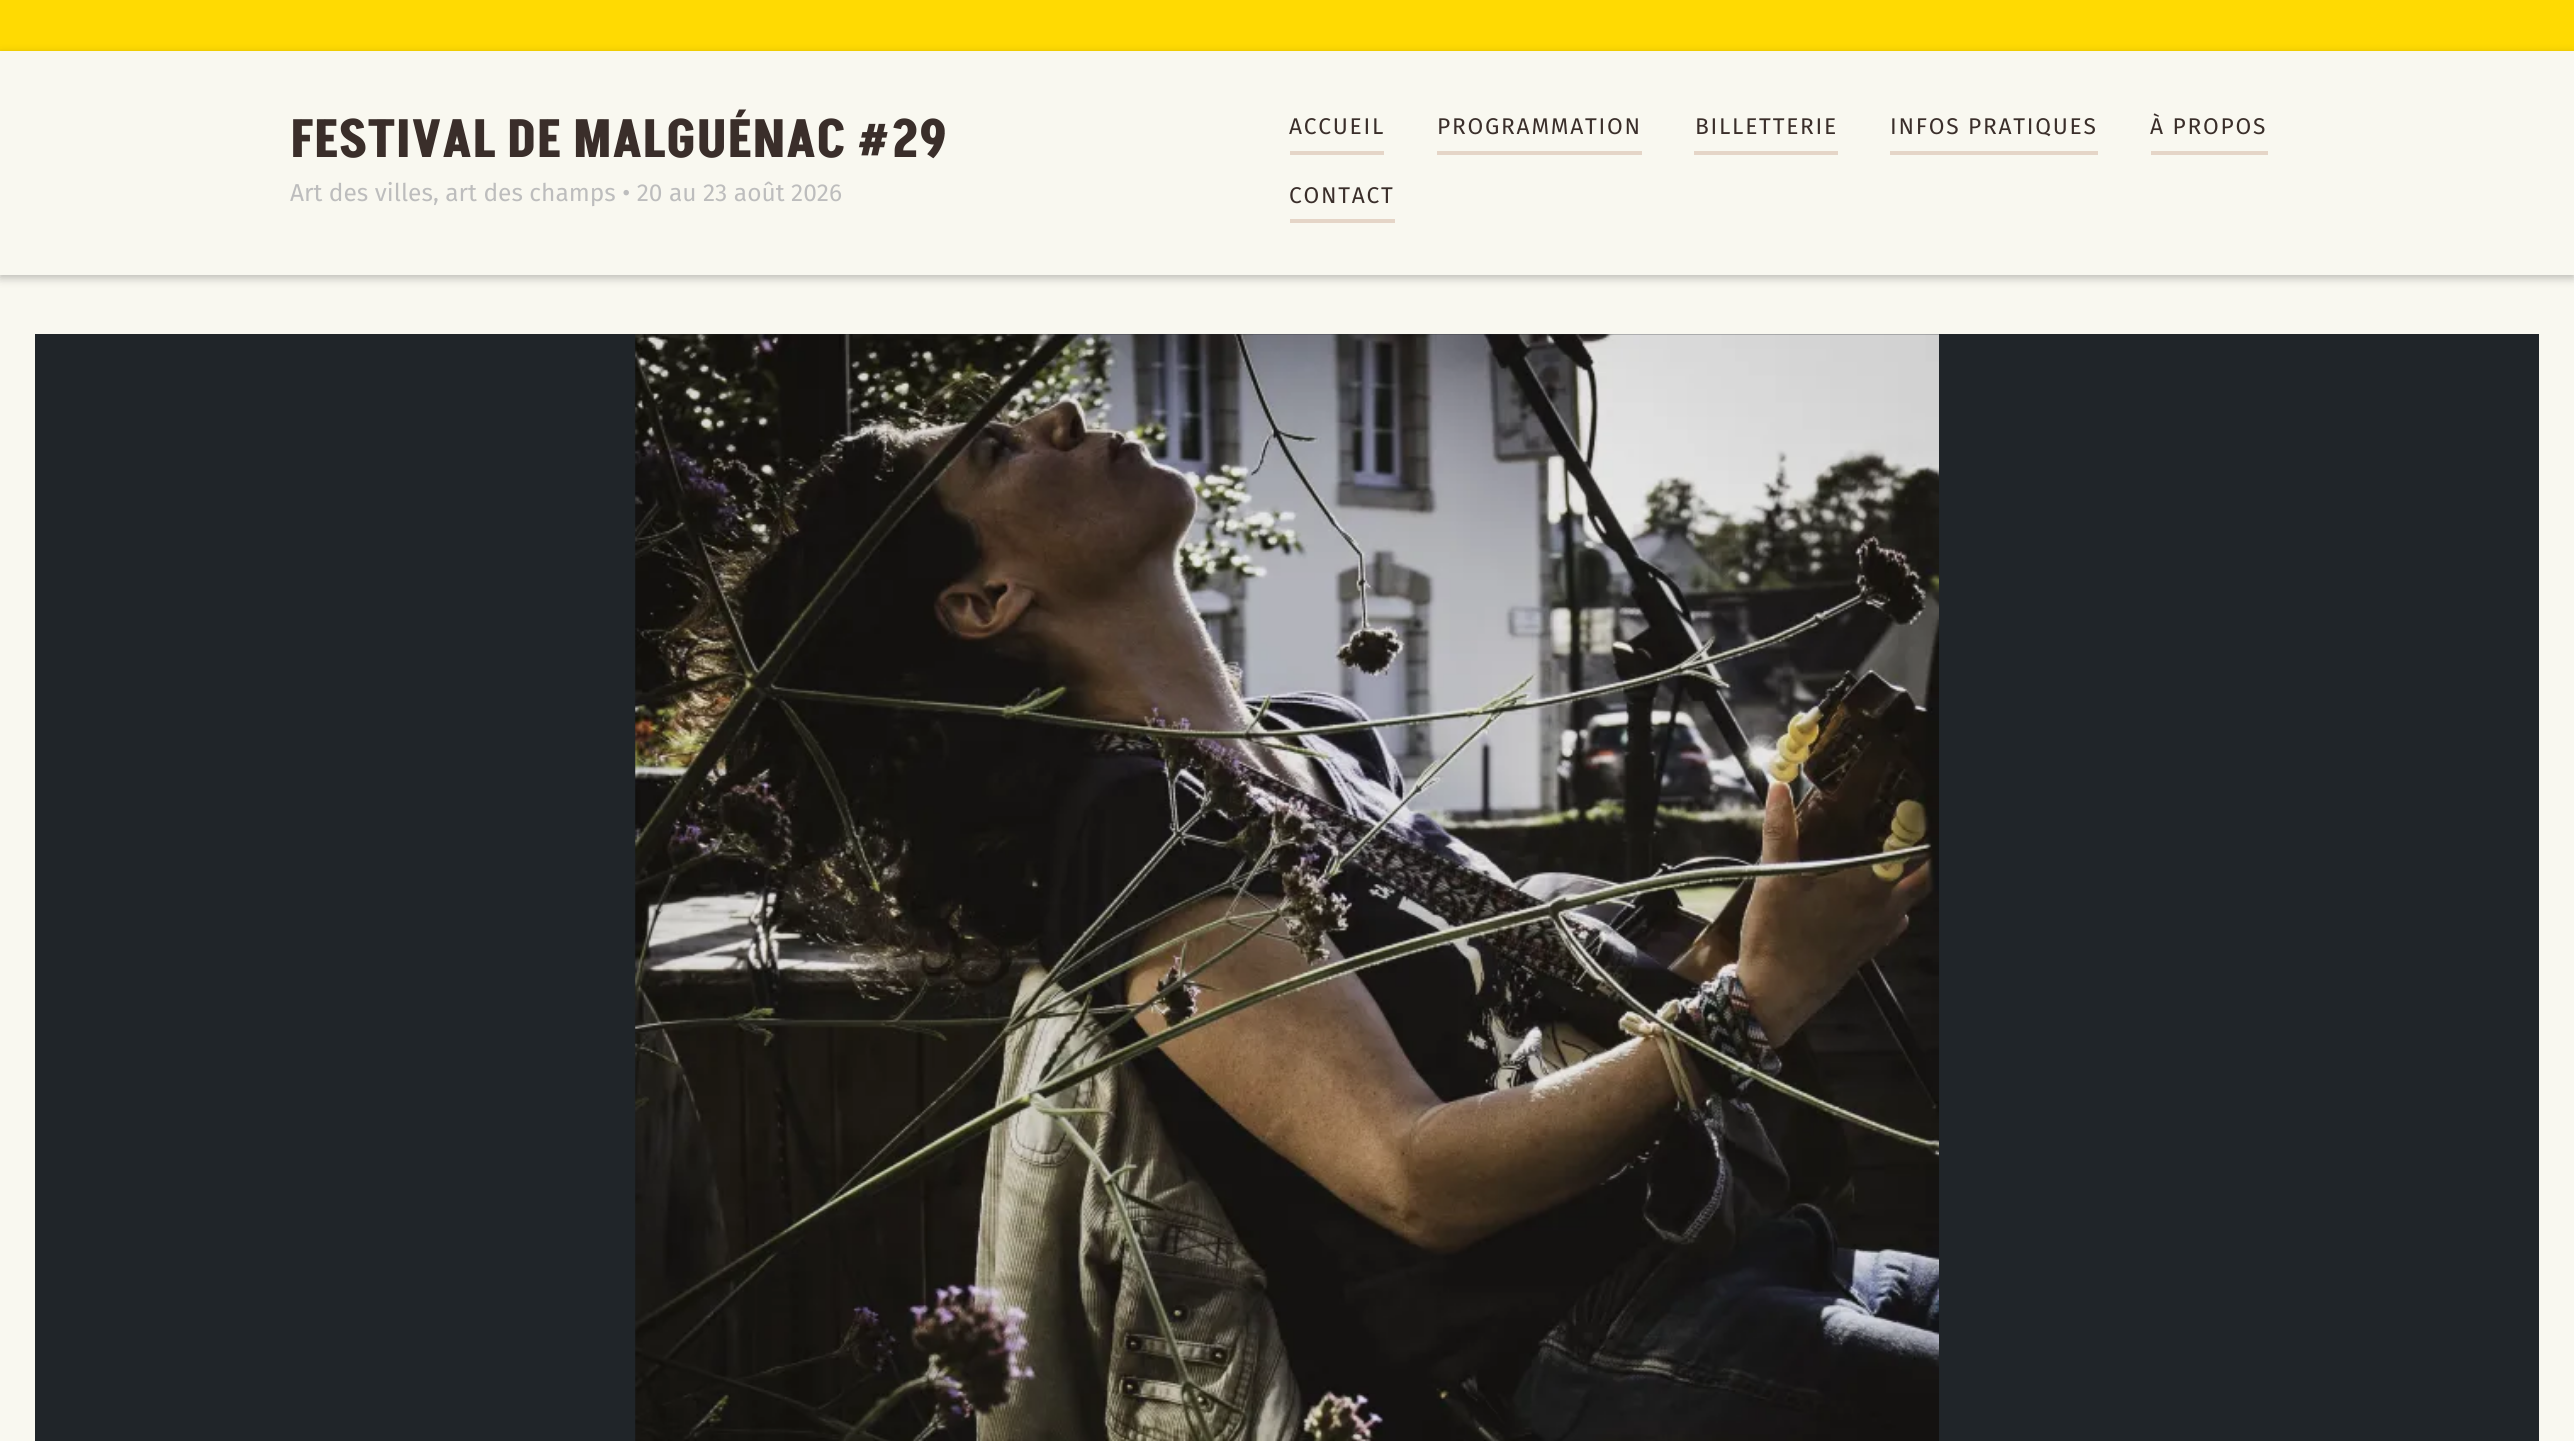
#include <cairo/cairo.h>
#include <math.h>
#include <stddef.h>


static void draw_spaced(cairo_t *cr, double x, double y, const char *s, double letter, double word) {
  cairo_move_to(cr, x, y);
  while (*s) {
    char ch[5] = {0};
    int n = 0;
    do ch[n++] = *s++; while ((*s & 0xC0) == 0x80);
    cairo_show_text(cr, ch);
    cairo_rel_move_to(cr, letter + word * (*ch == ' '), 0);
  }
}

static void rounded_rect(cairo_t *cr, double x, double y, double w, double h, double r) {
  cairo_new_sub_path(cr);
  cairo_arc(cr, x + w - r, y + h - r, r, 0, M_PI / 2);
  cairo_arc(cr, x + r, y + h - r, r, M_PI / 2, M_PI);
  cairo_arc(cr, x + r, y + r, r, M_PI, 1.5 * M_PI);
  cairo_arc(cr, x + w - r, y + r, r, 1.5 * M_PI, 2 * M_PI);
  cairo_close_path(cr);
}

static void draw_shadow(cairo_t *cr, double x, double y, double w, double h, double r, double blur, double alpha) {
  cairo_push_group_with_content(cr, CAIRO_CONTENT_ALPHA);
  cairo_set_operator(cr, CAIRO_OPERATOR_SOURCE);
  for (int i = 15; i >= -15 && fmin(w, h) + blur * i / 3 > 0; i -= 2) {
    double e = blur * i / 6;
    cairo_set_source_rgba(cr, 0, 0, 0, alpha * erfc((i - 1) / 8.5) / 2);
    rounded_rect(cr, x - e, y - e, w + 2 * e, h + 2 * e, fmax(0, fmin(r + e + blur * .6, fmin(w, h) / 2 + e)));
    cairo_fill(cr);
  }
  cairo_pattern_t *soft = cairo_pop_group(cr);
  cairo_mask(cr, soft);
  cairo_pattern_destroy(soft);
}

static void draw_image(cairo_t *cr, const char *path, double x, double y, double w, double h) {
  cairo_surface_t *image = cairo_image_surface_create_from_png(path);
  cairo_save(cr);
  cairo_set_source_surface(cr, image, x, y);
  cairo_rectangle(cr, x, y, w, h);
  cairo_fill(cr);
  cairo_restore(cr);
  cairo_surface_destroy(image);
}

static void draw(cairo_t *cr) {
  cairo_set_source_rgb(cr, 249 / 255.0, 248 / 255.0, 240 / 255.0);
  cairo_paint(cr);
  cairo_set_source_rgb(cr, 1, 218 / 255.0, 2 / 255.0);
  cairo_rectangle(cr, 0, 0, 2574, 51);
  cairo_fill(cr);
  cairo_set_source_rgb(cr, 0, 0, 0);
  draw_shadow(cr, 0, 54, 2574, 224, 0, 4.5, 0.25);
  cairo_set_source_rgb(cr, 249 / 255.0, 248 / 255.0, 240 / 255.0);
  cairo_rectangle(cr, 0, 51, 2574, 224);
  cairo_fill(cr);
  cairo_set_source_rgb(cr, 229 / 255.0, 213 / 255.0, 199 / 255.0);
  cairo_rectangle(cr, 1290, 151, 94, 4);
  cairo_fill(cr);
  cairo_rectangle(cr, 1437, 151, 205, 4);
  cairo_fill(cr);
  cairo_rectangle(cr, 1694, 151, 144, 4);
  cairo_fill(cr);
  cairo_rectangle(cr, 1890, 151, 208, 4);
  cairo_fill(cr);
  cairo_rectangle(cr, 2151, 151, 117, 4);
  cairo_fill(cr);
  cairo_rectangle(cr, 1290, 219, 105, 4);
  cairo_fill(cr);
  cairo_set_source_rgb(cr, 32 / 255.0, 37 / 255.0, 41 / 255.0);
  cairo_rectangle(cr, 35, 334, 2504, 1107);
  cairo_fill(cr);
  draw_image(cr, "images/1.png", 635, 334, 1304, 1107);
  cairo_select_font_face(cr, "Akshar", CAIRO_FONT_SLANT_NORMAL, CAIRO_FONT_WEIGHT_BOLD);
  cairo_set_font_size(cr, 52.5);
  cairo_set_source_rgb(cr, 58 / 255.0, 46 / 255.0, 42 / 255.0);
  cairo_move_to(cr, 290, 157);
  cairo_show_text(cr, "FESTIVAL DE MALGUÉNAC #29");
  cairo_select_font_face(cr, "Fira Sans", CAIRO_FONT_SLANT_NORMAL, CAIRO_FONT_WEIGHT_NORMAL);
  cairo_set_font_size(cr, 24.5);
  cairo_set_source_rgb(cr, 189 / 255.0, 189 / 255.0, 189 / 255.0);
  cairo_move_to(cr, 290, 201);
  cairo_show_text(cr, "Art des villes, art des champs • 20 au 23 août 2026");
  cairo_set_font_size(cr, 22.75);
  cairo_set_source_rgb(cr, 58 / 255.0, 46 / 255.0, 42 / 255.0);
  draw_spaced(cr, 1289, 134, "ACCUEIL", 1.75, 0);
  draw_spaced(cr, 1437, 134, "PROGRAMMATION", 1.75, 0);
  draw_spaced(cr, 1695, 134, "BILLETTERIE", 1.75, 0);
  draw_spaced(cr, 1890, 134, "INFOS PRATIQUES", 1.75, 0);
  draw_spaced(cr, 2150, 134, "À PROPOS", 1.75, 0);
  draw_spaced(cr, 1289, 203, "CONTACT", 1.75, 0);
}

int main(void) {
  cairo_surface_t *surface = cairo_image_surface_create(CAIRO_FORMAT_RGB24, 2574, 1441);
  cairo_t *cr = cairo_create(surface);
  cairo_font_options_t *options = cairo_font_options_create();
  cairo_font_options_set_hint_metrics(options, CAIRO_HINT_METRICS_OFF);
  cairo_font_options_set_hint_style(options, CAIRO_HINT_STYLE_NONE);
  cairo_set_font_options(cr, options);
  cairo_set_miter_limit(cr, 4);
  draw(cr);
  cairo_surface_write_to_png(surface, "out.png");
  cairo_font_options_destroy(options);
  cairo_destroy(cr);
  cairo_surface_destroy(surface);
  return 0;
}
